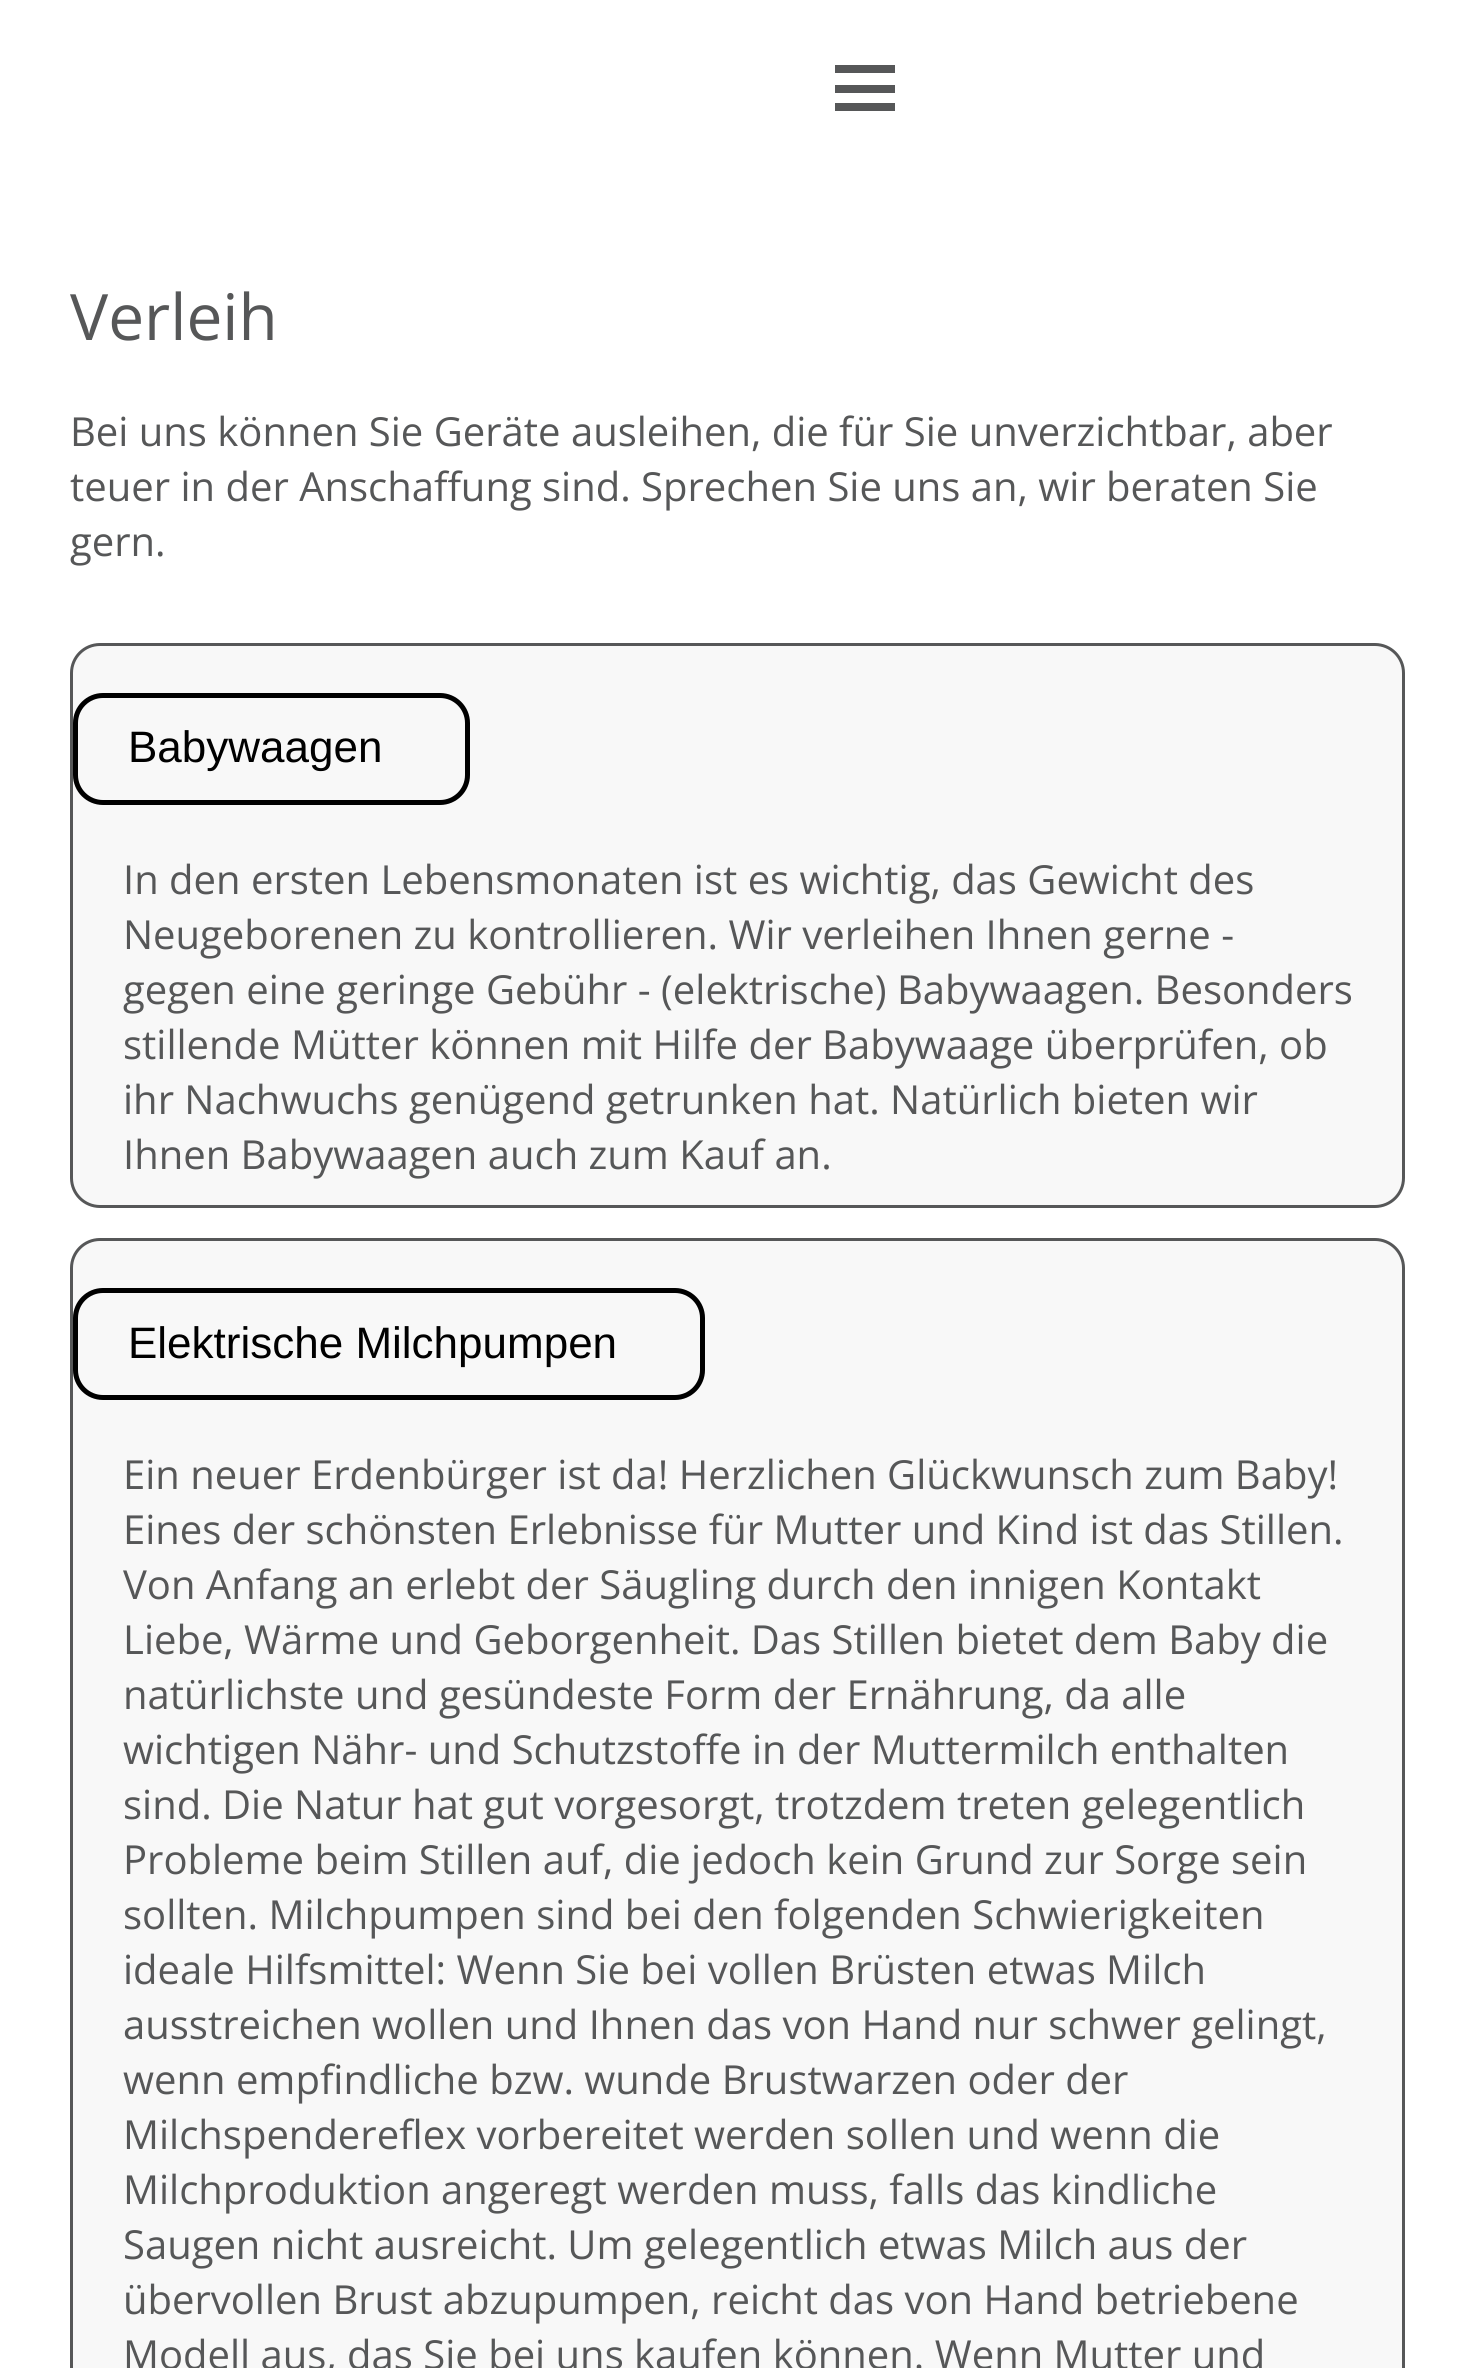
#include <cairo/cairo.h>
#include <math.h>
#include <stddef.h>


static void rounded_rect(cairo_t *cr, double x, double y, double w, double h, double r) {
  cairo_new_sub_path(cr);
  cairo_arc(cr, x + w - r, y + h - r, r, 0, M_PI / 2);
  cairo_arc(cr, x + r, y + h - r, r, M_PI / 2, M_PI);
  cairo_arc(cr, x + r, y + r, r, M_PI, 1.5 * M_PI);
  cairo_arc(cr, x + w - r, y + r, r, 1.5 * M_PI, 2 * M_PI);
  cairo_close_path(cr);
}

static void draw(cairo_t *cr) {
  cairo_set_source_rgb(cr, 1, 1, 1);
  cairo_paint(cr);
  cairo_set_source_rgb(cr, 86 / 255.0, 87 / 255.0, 88 / 255.0);
  cairo_rectangle(cr, 835, 65, 60, 8);
  cairo_fill(cr);
  cairo_rectangle(cr, 835, 85, 60, 8);
  cairo_fill(cr);
  cairo_rectangle(cr, 835, 103, 60, 8);
  cairo_fill(cr);
  cairo_set_source_rgb(cr, 248 / 255.0, 248 / 255.0, 248 / 255.0);
  rounded_rect(cr, 71.5, 644.5, 1332, 562, 28.5);
  cairo_fill_preserve(cr);
  cairo_set_source_rgb(cr, 86 / 255.0, 87 / 255.0, 88 / 255.0);
  cairo_set_line_width(cr, 3);
  cairo_stroke(cr);
  rounded_rect(cr, 75.5, 695.5, 392, 107, 27.5);
  cairo_set_source_rgb(cr, 0, 0, 0);
  cairo_set_line_width(cr, 5);
  cairo_stroke(cr);
  cairo_set_source_rgb(cr, 248 / 255.0, 248 / 255.0, 248 / 255.0);
  rounded_rect(cr, 71.5, 1239.5, 1332, 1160, 28.5);
  cairo_fill_preserve(cr);
  cairo_set_source_rgb(cr, 86 / 255.0, 87 / 255.0, 88 / 255.0);
  cairo_set_line_width(cr, 3);
  cairo_stroke(cr);
  rounded_rect(cr, 75.5, 1290.5, 627, 107, 27.5);
  cairo_set_source_rgb(cr, 0, 0, 0);
  cairo_set_line_width(cr, 5);
  cairo_stroke(cr);
  cairo_select_font_face(cr, "Open Sans", CAIRO_FONT_SLANT_NORMAL, CAIRO_FONT_WEIGHT_NORMAL);
  cairo_set_font_size(cr, 64);
  cairo_set_source_rgb(cr, 86 / 255.0, 87 / 255.0, 88 / 255.0);
  cairo_move_to(cr, 70, 340);
  cairo_show_text(cr, "Verleih");
  cairo_set_font_size(cr, 40);
  cairo_move_to(cr, 70, 446);
  cairo_show_text(cr, "Bei uns können Sie Geräte ausleihen, die für Sie unverzichtbar, aber");
  cairo_move_to(cr, 70, 501);
  cairo_show_text(cr, "teuer in der Anschaffung sind. Sprechen Sie uns an, wir beraten Sie");
  cairo_move_to(cr, 70, 556);
  cairo_show_text(cr, "gern.");
  cairo_select_font_face(cr, "Liberation Sans", CAIRO_FONT_SLANT_NORMAL, CAIRO_FONT_WEIGHT_NORMAL);
  cairo_set_font_size(cr, 44);
  cairo_set_source_rgb(cr, 0, 0, 0);
  cairo_move_to(cr, 128, 762);
  cairo_show_text(cr, "Babywaagen");
  cairo_select_font_face(cr, "Open Sans", CAIRO_FONT_SLANT_NORMAL, CAIRO_FONT_WEIGHT_NORMAL);
  cairo_set_font_size(cr, 40);
  cairo_set_source_rgb(cr, 86 / 255.0, 87 / 255.0, 88 / 255.0);
  cairo_move_to(cr, 123, 894);
  cairo_show_text(cr, "In den ersten Lebensmonaten ist es wichtig, das Gewicht des");
  cairo_move_to(cr, 123, 949);
  cairo_show_text(cr, "Neugeborenen zu kontrollieren. Wir verleihen Ihnen gerne -");
  cairo_move_to(cr, 123, 1004);
  cairo_show_text(cr, "gegen eine geringe Gebühr - (elektrische) Babywaagen. Besonders");
  cairo_move_to(cr, 123, 1059);
  cairo_show_text(cr, "stillende Mütter können mit Hilfe der Babywaage überprüfen, ob");
  cairo_move_to(cr, 123, 1114);
  cairo_show_text(cr, "ihr Nachwuchs genügend getrunken hat. Natürlich bieten wir");
  cairo_move_to(cr, 123, 1169);
  cairo_show_text(cr, "Ihnen Babywaagen auch zum Kauf an.");
  cairo_select_font_face(cr, "Liberation Sans", CAIRO_FONT_SLANT_NORMAL, CAIRO_FONT_WEIGHT_NORMAL);
  cairo_set_font_size(cr, 44);
  cairo_set_source_rgb(cr, 0, 0, 0);
  cairo_move_to(cr, 128, 1358);
  cairo_show_text(cr, "Elektrische Milchpumpen");
  cairo_select_font_face(cr, "Open Sans", CAIRO_FONT_SLANT_NORMAL, CAIRO_FONT_WEIGHT_NORMAL);
  cairo_set_font_size(cr, 40);
  cairo_set_source_rgb(cr, 86 / 255.0, 87 / 255.0, 88 / 255.0);
  cairo_move_to(cr, 123, 1489);
  cairo_show_text(cr, "Ein neuer Erdenbürger ist da! Herzlichen Glückwunsch zum Baby!");
  cairo_move_to(cr, 123, 1544);
  cairo_show_text(cr, "Eines der schönsten Erlebnisse für Mutter und Kind ist das Stillen.");
  cairo_move_to(cr, 123, 1599);
  cairo_show_text(cr, "Von Anfang an erlebt der Säugling durch den innigen Kontakt");
  cairo_move_to(cr, 123, 1654);
  cairo_show_text(cr, "Liebe, Wärme und Geborgenheit. Das Stillen bietet dem Baby die");
  cairo_move_to(cr, 123, 1709);
  cairo_show_text(cr, "natürlichste und gesündeste Form der Ernährung, da alle");
  cairo_move_to(cr, 123, 1764);
  cairo_show_text(cr, "wichtigen Nähr- und Schutzstoffe in der Muttermilch enthalten");
  cairo_move_to(cr, 123, 1819);
  cairo_show_text(cr, "sind. Die Natur hat gut vorgesorgt, trotzdem treten gelegentlich");
  cairo_move_to(cr, 123, 1874);
  cairo_show_text(cr, "Probleme beim Stillen auf, die jedoch kein Grund zur Sorge sein");
  cairo_move_to(cr, 123, 1929);
  cairo_show_text(cr, "sollten. Milchpumpen sind bei den folgenden Schwierigkeiten");
  cairo_move_to(cr, 123, 1984);
  cairo_show_text(cr, "ideale Hilfsmittel: Wenn Sie bei vollen Brüsten etwas Milch");
  cairo_move_to(cr, 123, 2039);
  cairo_show_text(cr, "ausstreichen wollen und Ihnen das von Hand nur schwer gelingt,");
  cairo_move_to(cr, 123, 2094);
  cairo_show_text(cr, "wenn empfindliche bzw. wunde Brustwarzen oder der");
  cairo_move_to(cr, 123, 2149);
  cairo_show_text(cr, "Milchspendereflex vorbereitet werden sollen und wenn die");
  cairo_move_to(cr, 123, 2204);
  cairo_show_text(cr, "Milchproduktion angeregt werden muss, falls das kindliche");
  cairo_move_to(cr, 123, 2259);
  cairo_show_text(cr, "Saugen nicht ausreicht. Um gelegentlich etwas Milch aus der");
  cairo_move_to(cr, 123, 2314);
  cairo_show_text(cr, "übervollen Brust abzupumpen, reicht das von Hand betriebene");
  cairo_move_to(cr, 123, 2369);
  cairo_show_text(cr, "Modell aus, das Sie bei uns kaufen können. Wenn Mutter und");
}

int main(void) {
  cairo_surface_t *surface = cairo_image_surface_create(CAIRO_FORMAT_RGB24, 1475, 2368);
  cairo_t *cr = cairo_create(surface);
  cairo_font_options_t *options = cairo_font_options_create();
  cairo_font_options_set_hint_metrics(options, CAIRO_HINT_METRICS_OFF);
  cairo_font_options_set_hint_style(options, CAIRO_HINT_STYLE_NONE);
  cairo_set_font_options(cr, options);
  cairo_set_miter_limit(cr, 4);
  draw(cr);
  cairo_surface_write_to_png(surface, "out.png");
  cairo_font_options_destroy(options);
  cairo_destroy(cr);
  cairo_surface_destroy(surface);
  return 0;
}
